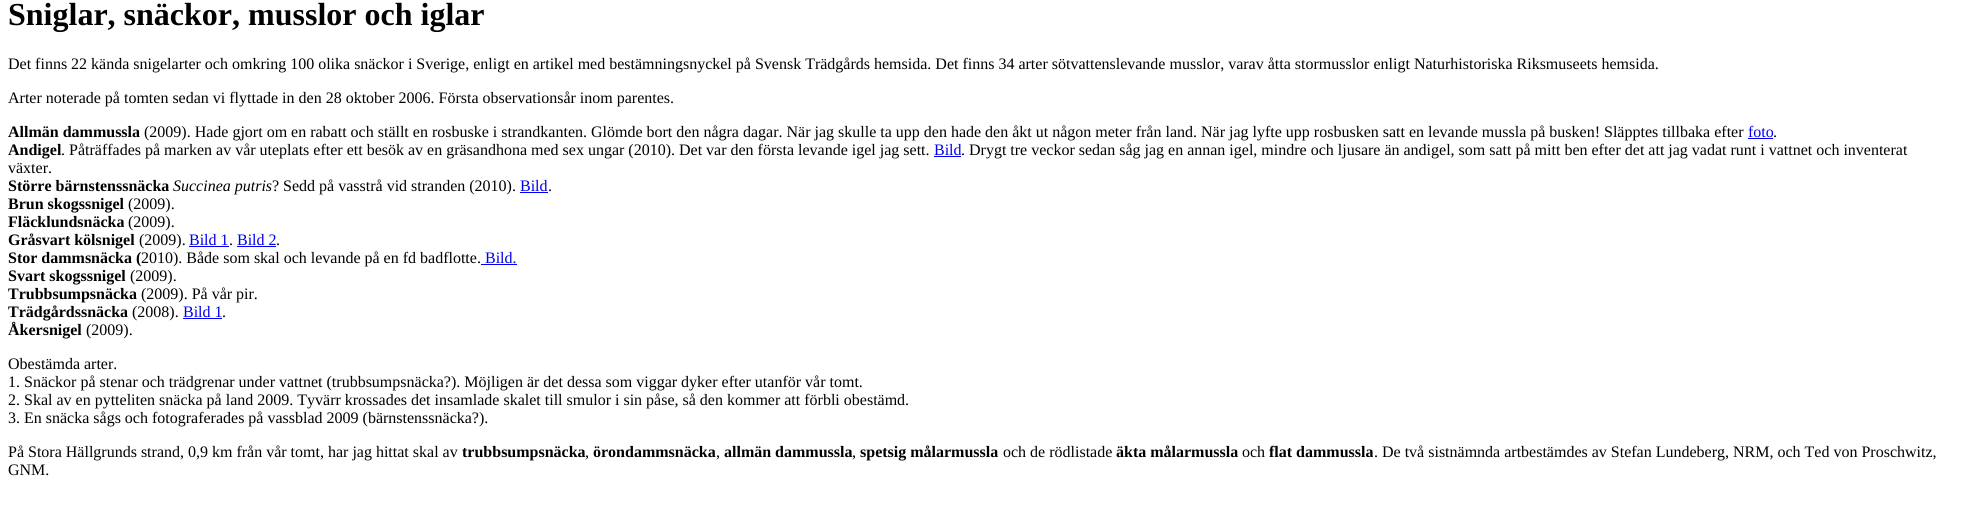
#include <cairo/cairo.h>
#include <math.h>
#include <stddef.h>


static void draw(cairo_t *cr) {
  cairo_set_source_rgb(cr, 1, 1, 1);
  cairo_paint(cr);
  cairo_set_source_rgb(cr, 0, 0, 238 / 255.0);
  cairo_rectangle(cr, 1748, 138, 25, 1);
  cairo_fill(cr);
  cairo_rectangle(cr, 934, 156, 27, 1);
  cairo_fill(cr);
  cairo_rectangle(cr, 520, 192, 28, 1);
  cairo_fill(cr);
  cairo_rectangle(cr, 189, 246, 40, 1);
  cairo_fill(cr);
  cairo_rectangle(cr, 237, 246, 39, 1);
  cairo_fill(cr);
  cairo_rectangle(cr, 481, 264, 36, 1);
  cairo_fill(cr);
  cairo_rectangle(cr, 183, 318, 39, 1);
  cairo_fill(cr);
  cairo_select_font_face(cr, "Liberation Serif", CAIRO_FONT_SLANT_NORMAL, CAIRO_FONT_WEIGHT_BOLD);
  cairo_set_font_size(cr, 32);
  cairo_set_source_rgb(cr, 0, 0, 0);
  cairo_move_to(cr, 8, 25);
  cairo_show_text(cr, "Sniglar, snäckor, musslor och iglar");
  cairo_select_font_face(cr, "Liberation Serif", CAIRO_FONT_SLANT_NORMAL, CAIRO_FONT_WEIGHT_NORMAL);
  cairo_set_font_size(cr, 16);
  cairo_move_to(cr, 8, 69);
  cairo_show_text(cr, "Det finns 22 kända snigelarter och omkring 100 olika snäckor i Sverige, enligt en artikel med bestämningsnyckel på Svensk Trädgårds hemsida. Det finns 34 arter sötvattenslevande musslor, varav åtta stormusslor enligt Naturhistoriska Riksmuseets hemsida.");
  cairo_move_to(cr, 8, 103);
  cairo_show_text(cr, "Arter noterade på tomten sedan vi flyttade in den 28 oktober 2006. Första observationsår inom parentes.");
  cairo_select_font_face(cr, "Liberation Serif", CAIRO_FONT_SLANT_NORMAL, CAIRO_FONT_WEIGHT_BOLD);
  cairo_move_to(cr, 8, 137);
  cairo_show_text(cr, "Allmän dammussla");
  cairo_select_font_face(cr, "Liberation Serif", CAIRO_FONT_SLANT_NORMAL, CAIRO_FONT_WEIGHT_NORMAL);
  cairo_move_to(cr, 144, 137);
  cairo_show_text(cr, "(2009). Hade gjort om en rabatt och ställt en rosbuske i strandkanten. Glömde bort den några dagar. När jag skulle ta upp den hade den åkt ut någon meter från land. När jag lyfte upp rosbusken satt en levande mussla på busken! Släpptes tillbaka efter");
  cairo_set_source_rgb(cr, 0, 0, 238 / 255.0);
  cairo_move_to(cr, 1748, 137);
  cairo_show_text(cr, "foto");
  cairo_set_source_rgb(cr, 0, 0, 0);
  cairo_move_to(cr, 1773, 137);
  cairo_show_text(cr, ".");
  cairo_select_font_face(cr, "Liberation Serif", CAIRO_FONT_SLANT_NORMAL, CAIRO_FONT_WEIGHT_BOLD);
  cairo_move_to(cr, 8, 155);
  cairo_show_text(cr, "Andigel");
  cairo_select_font_face(cr, "Liberation Serif", CAIRO_FONT_SLANT_NORMAL, CAIRO_FONT_WEIGHT_NORMAL);
  cairo_move_to(cr, 61, 155);
  cairo_show_text(cr, ". Påträffades på marken av vår uteplats efter ett besök av en gräsandhona med sex ungar (2010). Det var den första levande igel jag sett.");
  cairo_set_source_rgb(cr, 0, 0, 238 / 255.0);
  cairo_move_to(cr, 934, 155);
  cairo_show_text(cr, "Bild");
  cairo_set_source_rgb(cr, 0, 0, 0);
  cairo_move_to(cr, 961, 155);
  cairo_show_text(cr, ". Drygt tre veckor sedan såg jag en annan igel, mindre och ljusare än andigel, som satt på mitt ben efter det att jag vadat runt i vattnet och inventerat");
  cairo_move_to(cr, 8, 173);
  cairo_show_text(cr, "växter.");
  cairo_select_font_face(cr, "Liberation Serif", CAIRO_FONT_SLANT_NORMAL, CAIRO_FONT_WEIGHT_BOLD);
  cairo_move_to(cr, 8, 191);
  cairo_show_text(cr, "Större bärnstenssnäcka");
  cairo_select_font_face(cr, "Liberation Serif", CAIRO_FONT_SLANT_ITALIC, CAIRO_FONT_WEIGHT_NORMAL);
  cairo_move_to(cr, 173, 191);
  cairo_show_text(cr, "Succinea putris");
  cairo_select_font_face(cr, "Liberation Serif", CAIRO_FONT_SLANT_NORMAL, CAIRO_FONT_WEIGHT_NORMAL);
  cairo_move_to(cr, 272, 191);
  cairo_show_text(cr, "? Sedd på vasstrå vid stranden (2010).");
  cairo_set_source_rgb(cr, 0, 0, 238 / 255.0);
  cairo_move_to(cr, 520, 191);
  cairo_show_text(cr, "Bild");
  cairo_set_source_rgb(cr, 0, 0, 0);
  cairo_move_to(cr, 548, 191);
  cairo_show_text(cr, ".");
  cairo_select_font_face(cr, "Liberation Serif", CAIRO_FONT_SLANT_NORMAL, CAIRO_FONT_WEIGHT_BOLD);
  cairo_move_to(cr, 8, 209);
  cairo_show_text(cr, "Brun skogssnigel");
  cairo_select_font_face(cr, "Liberation Serif", CAIRO_FONT_SLANT_NORMAL, CAIRO_FONT_WEIGHT_NORMAL);
  cairo_move_to(cr, 128, 209);
  cairo_show_text(cr, "(2009).");
  cairo_select_font_face(cr, "Liberation Serif", CAIRO_FONT_SLANT_NORMAL, CAIRO_FONT_WEIGHT_BOLD);
  cairo_move_to(cr, 8, 227);
  cairo_show_text(cr, "Fläcklundsnäcka");
  cairo_select_font_face(cr, "Liberation Serif", CAIRO_FONT_SLANT_NORMAL, CAIRO_FONT_WEIGHT_NORMAL);
  cairo_move_to(cr, 128, 227);
  cairo_show_text(cr, "(2009).");
  cairo_select_font_face(cr, "Liberation Serif", CAIRO_FONT_SLANT_NORMAL, CAIRO_FONT_WEIGHT_BOLD);
  cairo_move_to(cr, 8, 245);
  cairo_show_text(cr, "Gråsvart kölsnigel");
  cairo_select_font_face(cr, "Liberation Serif", CAIRO_FONT_SLANT_NORMAL, CAIRO_FONT_WEIGHT_NORMAL);
  cairo_move_to(cr, 139, 245);
  cairo_show_text(cr, "(2009).");
  cairo_set_source_rgb(cr, 0, 0, 238 / 255.0);
  cairo_move_to(cr, 189, 245);
  cairo_show_text(cr, "Bild 1");
  cairo_set_source_rgb(cr, 0, 0, 0);
  cairo_move_to(cr, 229, 245);
  cairo_show_text(cr, ".");
  cairo_set_source_rgb(cr, 0, 0, 238 / 255.0);
  cairo_move_to(cr, 237, 245);
  cairo_show_text(cr, "Bild 2");
  cairo_set_source_rgb(cr, 0, 0, 0);
  cairo_move_to(cr, 276, 245);
  cairo_show_text(cr, ".");
  cairo_select_font_face(cr, "Liberation Serif", CAIRO_FONT_SLANT_NORMAL, CAIRO_FONT_WEIGHT_BOLD);
  cairo_move_to(cr, 8, 263);
  cairo_show_text(cr, "Stor dammsnäcka (");
  cairo_select_font_face(cr, "Liberation Serif", CAIRO_FONT_SLANT_NORMAL, CAIRO_FONT_WEIGHT_NORMAL);
  cairo_move_to(cr, 141, 263);
  cairo_show_text(cr, "2010). Både som skal och levande på en fd badflotte.");
  cairo_set_source_rgb(cr, 0, 0, 238 / 255.0);
  cairo_move_to(cr, 485, 263);
  cairo_show_text(cr, "Bild.");
  cairo_select_font_face(cr, "Liberation Serif", CAIRO_FONT_SLANT_NORMAL, CAIRO_FONT_WEIGHT_BOLD);
  cairo_set_source_rgb(cr, 0, 0, 0);
  cairo_move_to(cr, 8, 281);
  cairo_show_text(cr, "Svart skogssnigel");
  cairo_select_font_face(cr, "Liberation Serif", CAIRO_FONT_SLANT_NORMAL, CAIRO_FONT_WEIGHT_NORMAL);
  cairo_move_to(cr, 130, 281);
  cairo_show_text(cr, "(2009).");
  cairo_select_font_face(cr, "Liberation Serif", CAIRO_FONT_SLANT_NORMAL, CAIRO_FONT_WEIGHT_BOLD);
  cairo_move_to(cr, 8, 299);
  cairo_show_text(cr, "Trubbsumpsnäcka");
  cairo_select_font_face(cr, "Liberation Serif", CAIRO_FONT_SLANT_NORMAL, CAIRO_FONT_WEIGHT_NORMAL);
  cairo_move_to(cr, 141, 299);
  cairo_show_text(cr, "(2009). På vår pir.");
  cairo_select_font_face(cr, "Liberation Serif", CAIRO_FONT_SLANT_NORMAL, CAIRO_FONT_WEIGHT_BOLD);
  cairo_move_to(cr, 8, 317);
  cairo_show_text(cr, "Trädgårdssnäcka");
  cairo_select_font_face(cr, "Liberation Serif", CAIRO_FONT_SLANT_NORMAL, CAIRO_FONT_WEIGHT_NORMAL);
  cairo_move_to(cr, 132, 317);
  cairo_show_text(cr, "(2008).");
  cairo_set_source_rgb(cr, 0, 0, 238 / 255.0);
  cairo_move_to(cr, 183, 317);
  cairo_show_text(cr, "Bild 1");
  cairo_set_source_rgb(cr, 0, 0, 0);
  cairo_move_to(cr, 222, 317);
  cairo_show_text(cr, ".");
  cairo_select_font_face(cr, "Liberation Serif", CAIRO_FONT_SLANT_NORMAL, CAIRO_FONT_WEIGHT_BOLD);
  cairo_move_to(cr, 8, 335);
  cairo_show_text(cr, "Åkersnigel");
  cairo_select_font_face(cr, "Liberation Serif", CAIRO_FONT_SLANT_NORMAL, CAIRO_FONT_WEIGHT_NORMAL);
  cairo_move_to(cr, 86, 335);
  cairo_show_text(cr, "(2009).");
  cairo_move_to(cr, 8, 369);
  cairo_show_text(cr, "Obestämda arter.");
  cairo_move_to(cr, 8, 387);
  cairo_show_text(cr, "1. Snäckor på stenar och trädgrenar under vattnet (trubbsumpsnäcka?). Möjligen är det dessa som viggar dyker efter utanför vår tomt.");
  cairo_move_to(cr, 8, 405);
  cairo_show_text(cr, "2. Skal av en pytteliten snäcka på land 2009. Tyvärr krossades det insamlade skalet till smulor i sin påse, så den kommer att förbli obestämd.");
  cairo_move_to(cr, 8, 423);
  cairo_show_text(cr, "3. En snäcka sågs och fotograferades på vassblad 2009 (bärnstenssnäcka?).");
  cairo_move_to(cr, 8, 457);
  cairo_show_text(cr, "På Stora Hällgrunds strand, 0,9 km från vår tomt, har jag hittat skal av");
  cairo_select_font_face(cr, "Liberation Serif", CAIRO_FONT_SLANT_NORMAL, CAIRO_FONT_WEIGHT_BOLD);
  cairo_move_to(cr, 462, 457);
  cairo_show_text(cr, "trubbsumpsnäcka");
  cairo_select_font_face(cr, "Liberation Serif", CAIRO_FONT_SLANT_NORMAL, CAIRO_FONT_WEIGHT_NORMAL);
  cairo_move_to(cr, 585, 457);
  cairo_show_text(cr, ",");
  cairo_select_font_face(cr, "Liberation Serif", CAIRO_FONT_SLANT_NORMAL, CAIRO_FONT_WEIGHT_BOLD);
  cairo_move_to(cr, 593, 457);
  cairo_show_text(cr, "örondammsnäcka");
  cairo_select_font_face(cr, "Liberation Serif", CAIRO_FONT_SLANT_NORMAL, CAIRO_FONT_WEIGHT_NORMAL);
  cairo_move_to(cr, 716, 457);
  cairo_show_text(cr, ",");
  cairo_select_font_face(cr, "Liberation Serif", CAIRO_FONT_SLANT_NORMAL, CAIRO_FONT_WEIGHT_BOLD);
  cairo_move_to(cr, 724, 457);
  cairo_show_text(cr, "allmän dammussla");
  cairo_select_font_face(cr, "Liberation Serif", CAIRO_FONT_SLANT_NORMAL, CAIRO_FONT_WEIGHT_NORMAL);
  cairo_move_to(cr, 852, 457);
  cairo_show_text(cr, ",");
  cairo_select_font_face(cr, "Liberation Serif", CAIRO_FONT_SLANT_NORMAL, CAIRO_FONT_WEIGHT_BOLD);
  cairo_move_to(cr, 860, 457);
  cairo_show_text(cr, "spetsig målarmussla");
  cairo_select_font_face(cr, "Liberation Serif", CAIRO_FONT_SLANT_NORMAL, CAIRO_FONT_WEIGHT_NORMAL);
  cairo_move_to(cr, 1003, 457);
  cairo_show_text(cr, "och de rödlistade");
  cairo_select_font_face(cr, "Liberation Serif", CAIRO_FONT_SLANT_NORMAL, CAIRO_FONT_WEIGHT_BOLD);
  cairo_move_to(cr, 1116, 457);
  cairo_show_text(cr, "äkta målarmussla");
  cairo_select_font_face(cr, "Liberation Serif", CAIRO_FONT_SLANT_NORMAL, CAIRO_FONT_WEIGHT_NORMAL);
  cairo_move_to(cr, 1242, 457);
  cairo_show_text(cr, "och");
  cairo_select_font_face(cr, "Liberation Serif", CAIRO_FONT_SLANT_NORMAL, CAIRO_FONT_WEIGHT_BOLD);
  cairo_move_to(cr, 1269, 457);
  cairo_show_text(cr, "flat dammussla");
  cairo_select_font_face(cr, "Liberation Serif", CAIRO_FONT_SLANT_NORMAL, CAIRO_FONT_WEIGHT_NORMAL);
  cairo_move_to(cr, 1374, 457);
  cairo_show_text(cr, ". De två sistnämnda artbestämdes av Stefan Lundeberg, NRM, och Ted von Proschwitz,");
  cairo_move_to(cr, 8, 475);
  cairo_show_text(cr, "GNM.");
}

int main(void) {
  cairo_surface_t *surface = cairo_image_surface_create(CAIRO_FORMAT_RGB24, 1963, 510);
  cairo_t *cr = cairo_create(surface);
  cairo_font_options_t *options = cairo_font_options_create();
  cairo_font_options_set_hint_metrics(options, CAIRO_HINT_METRICS_OFF);
  cairo_font_options_set_hint_style(options, CAIRO_HINT_STYLE_NONE);
  cairo_set_font_options(cr, options);
  cairo_set_miter_limit(cr, 4);
  draw(cr);
  cairo_surface_write_to_png(surface, "out.png");
  cairo_font_options_destroy(options);
  cairo_destroy(cr);
  cairo_surface_destroy(surface);
  return 0;
}
